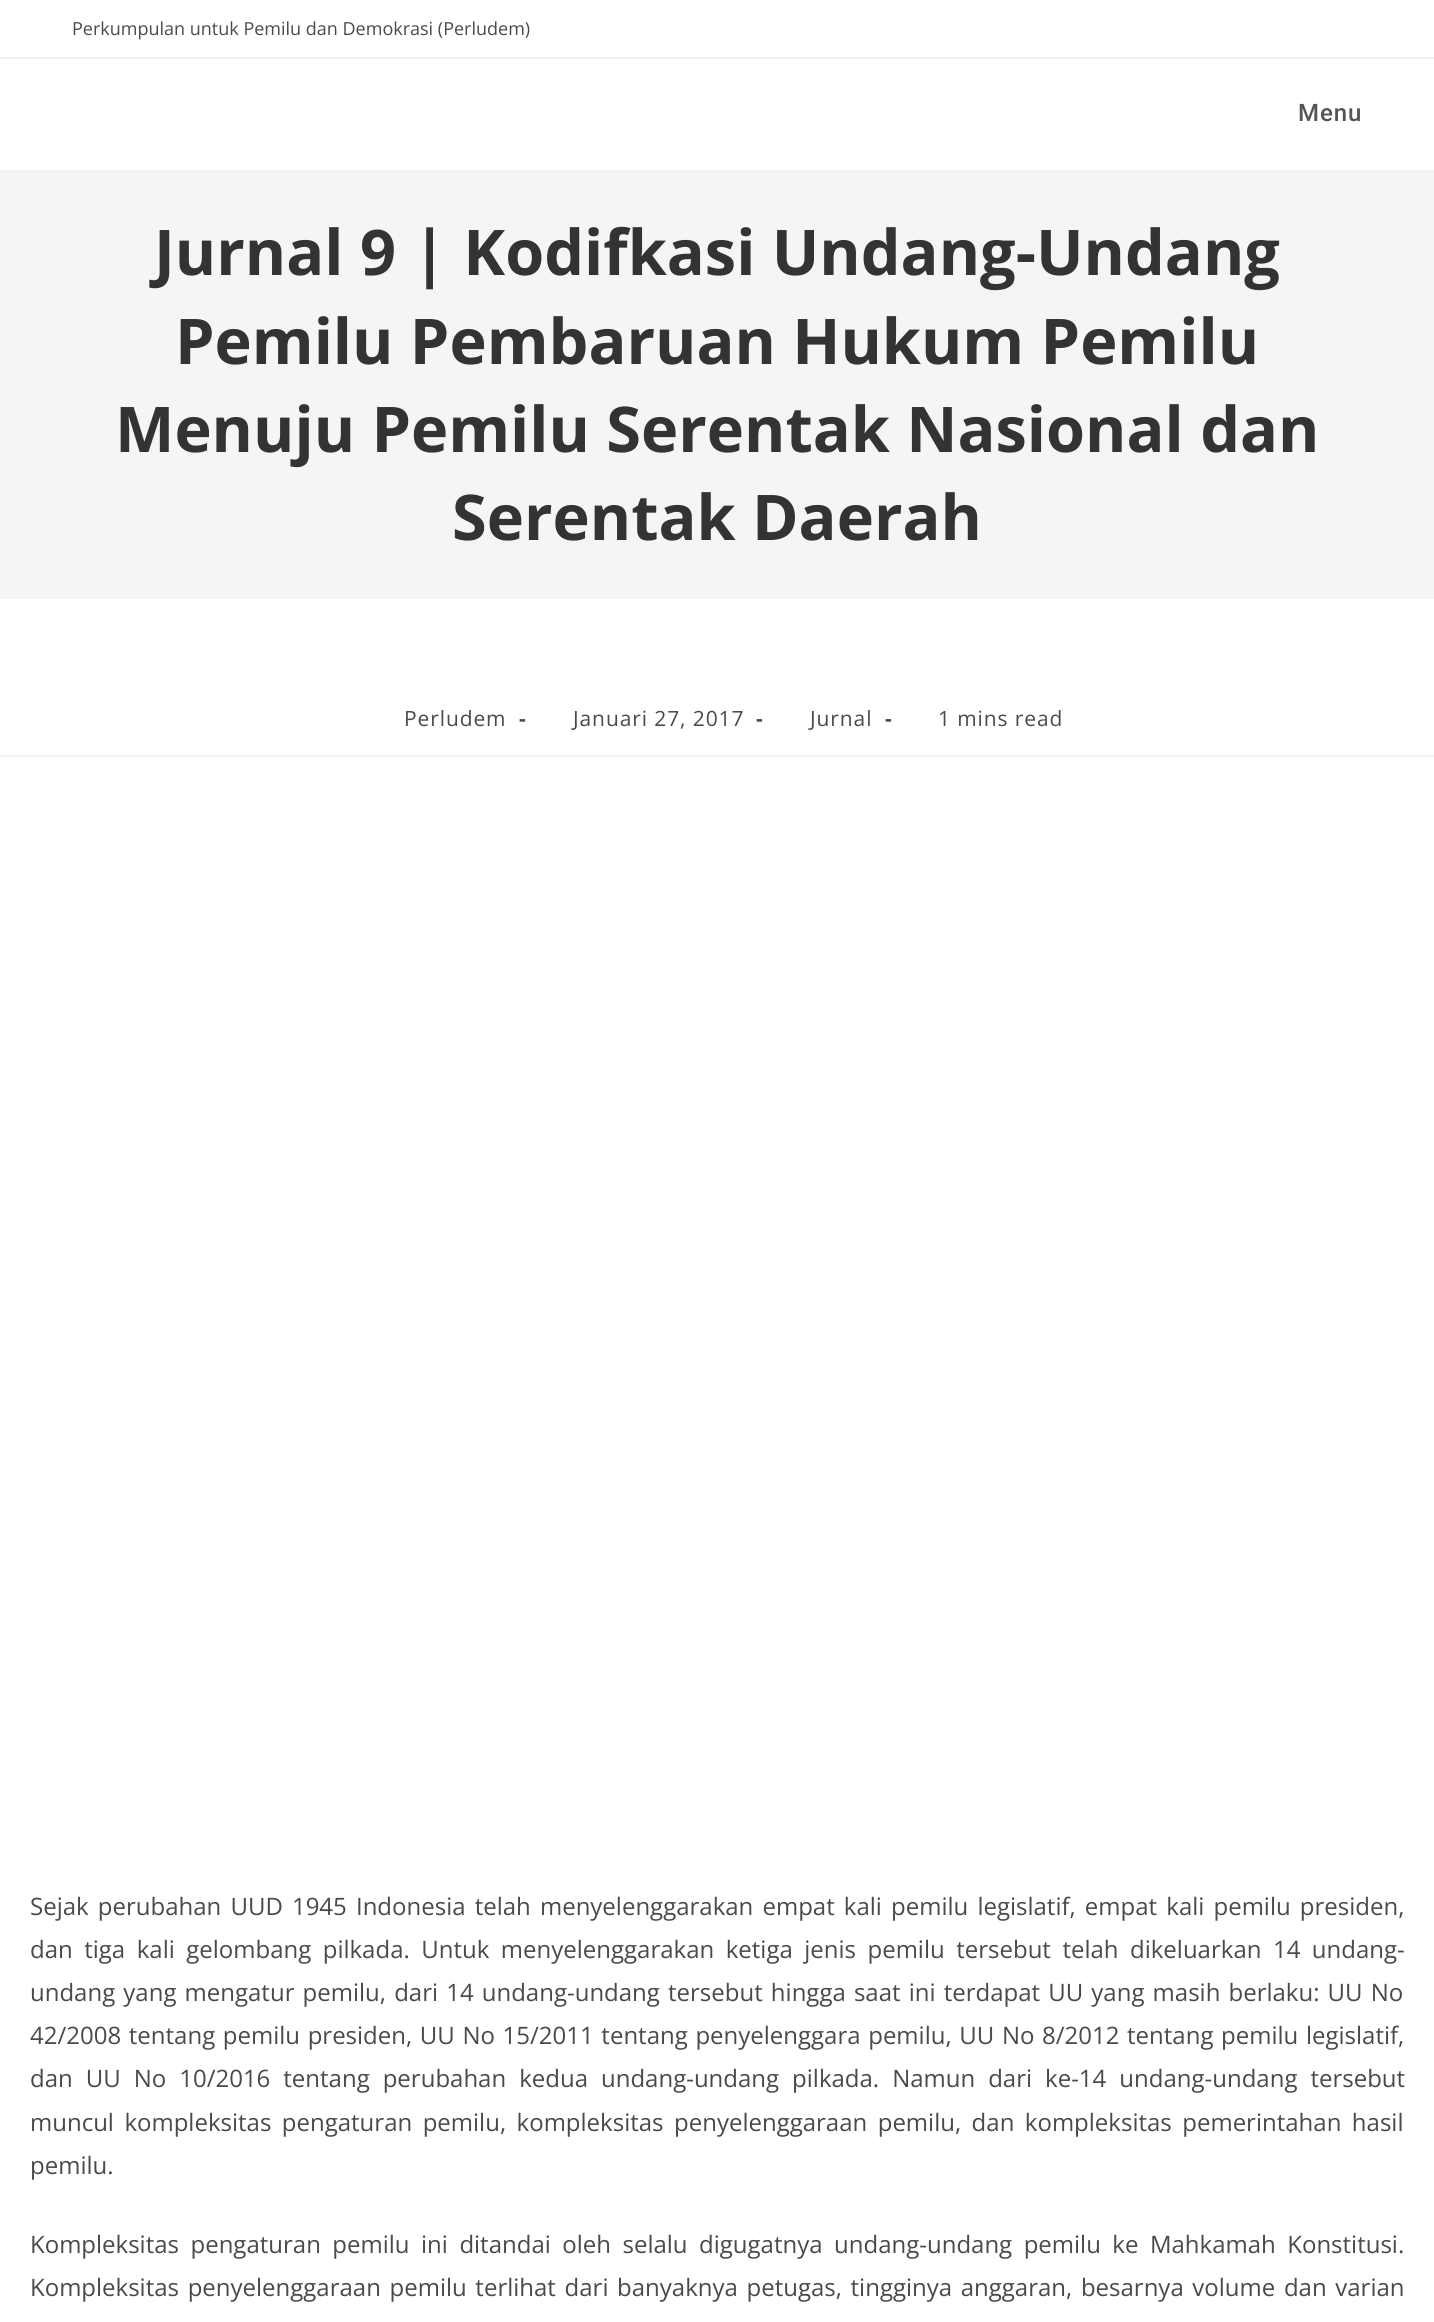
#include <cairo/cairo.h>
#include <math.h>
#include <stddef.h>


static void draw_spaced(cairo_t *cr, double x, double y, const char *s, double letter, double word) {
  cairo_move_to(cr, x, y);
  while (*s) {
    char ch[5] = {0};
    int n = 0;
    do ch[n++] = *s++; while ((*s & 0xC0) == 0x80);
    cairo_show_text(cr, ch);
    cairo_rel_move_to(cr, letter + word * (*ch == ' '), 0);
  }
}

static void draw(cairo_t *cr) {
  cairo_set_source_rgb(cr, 1, 1, 1);
  cairo_paint(cr);
  cairo_set_source_rgb(cr, 241 / 255.0, 241 / 255.0, 241 / 255.0);
  cairo_rectangle(cr, 0, 57, 1434, 2);
  cairo_fill(cr);
  cairo_rectangle(cr, 0, 170, 1434, 2);
  cairo_fill(cr);
  cairo_set_source_rgb(cr, 245 / 255.0, 245 / 255.0, 245 / 255.0);
  cairo_rectangle(cr, 0, 172, 1434, 427);
  cairo_fill(cr);
  cairo_set_source_rgb(cr, 241 / 255.0, 241 / 255.0, 241 / 255.0);
  cairo_rectangle(cr, 0, 755, 1434, 2);
  cairo_fill(cr);
  cairo_select_font_face(cr, "Open Sans", CAIRO_FONT_SLANT_NORMAL, CAIRO_FONT_WEIGHT_NORMAL);
  cairo_set_font_size(cr, 18);
  cairo_set_source_rgb(cr, 74 / 255.0, 74 / 255.0, 74 / 255.0);
  cairo_move_to(cr, 72, 35);
  cairo_show_text(cr, "Perkumpulan untuk Pemilu dan Demokrasi (Perludem)");
  cairo_select_font_face(cr, "Roboto Medium", CAIRO_FONT_SLANT_NORMAL, CAIRO_FONT_WEIGHT_NORMAL);
  cairo_set_font_size(cr, 24);
  cairo_set_source_rgb(cr, 85 / 255.0, 85 / 255.0, 85 / 255.0);
  draw_spaced(cr, 1298, 121, "Menu", 0.9, 0);
  cairo_select_font_face(cr, "Open Sans", CAIRO_FONT_SLANT_NORMAL, CAIRO_FONT_WEIGHT_BOLD);
  cairo_set_font_size(cr, 63);
  cairo_set_source_rgb(cr, 51 / 255.0, 51 / 255.0, 51 / 255.0);
  cairo_move_to(cr, 154, 275);
  cairo_show_text(cr, "Jurnal 9 | Kodifkasi Undang-Undang");
  cairo_move_to(cr, 175, 364);
  cairo_show_text(cr, "Pemilu Pembaruan Hukum Pemilu");
  cairo_move_to(cr, 115, 452);
  cairo_show_text(cr, "Menuju Pemilu Serentak Nasional dan");
  cairo_move_to(cr, 452, 540);
  cairo_show_text(cr, "Serentak Daerah");
  cairo_select_font_face(cr, "Open Sans", CAIRO_FONT_SLANT_NORMAL, CAIRO_FONT_WEIGHT_NORMAL);
  cairo_set_font_size(cr, 21);
  cairo_set_source_rgb(cr, 74 / 255.0, 74 / 255.0, 74 / 255.0);
  draw_spaced(cr, 404, 726, "Perludem", 0.9, 0);
  cairo_select_font_face(cr, "Open Sans", CAIRO_FONT_SLANT_NORMAL, CAIRO_FONT_WEIGHT_BOLD);
  draw_spaced(cr, 519, 726, "-", 0.9, 0);
  cairo_select_font_face(cr, "Open Sans", CAIRO_FONT_SLANT_NORMAL, CAIRO_FONT_WEIGHT_NORMAL);
  draw_spaced(cr, 573, 726, "Januari 27, 2017", 0.9, 0);
  cairo_select_font_face(cr, "Open Sans", CAIRO_FONT_SLANT_NORMAL, CAIRO_FONT_WEIGHT_BOLD);
  draw_spaced(cr, 756, 726, "-", 0.9, 0);
  cairo_select_font_face(cr, "Open Sans", CAIRO_FONT_SLANT_NORMAL, CAIRO_FONT_WEIGHT_NORMAL);
  draw_spaced(cr, 810, 726, "Jurnal", 0.9, 0);
  cairo_select_font_face(cr, "Open Sans", CAIRO_FONT_SLANT_NORMAL, CAIRO_FONT_WEIGHT_BOLD);
  draw_spaced(cr, 885, 726, "-", 0.9, 0);
  cairo_select_font_face(cr, "Open Sans", CAIRO_FONT_SLANT_NORMAL, CAIRO_FONT_WEIGHT_NORMAL);
  draw_spaced(cr, 938, 726, "1 mins read", 0.9, 0);
  cairo_set_font_size(cr, 24);
  draw_spaced(cr, 30, 1915, "Sejak perubahan UUD 1945 Indonesia telah menyelenggarakan empat kali pemilu legislatif, empat kali pemilu presiden,", 0, 2.9);
  draw_spaced(cr, 30, 1958, "dan tiga kali gelombang pilkada. Untuk menyelenggarakan ketiga jenis pemilu tersebut telah dikeluarkan 14 undang-", 0, 5.25);
  draw_spaced(cr, 30, 2001, "undang yang mengatur pemilu, dari 14 undang-undang tersebut hingga saat ini terdapat UU yang masih berlaku: UU No", 0, 1.9);
  draw_spaced(cr, 30, 2044, "42/2008 tentang pemilu presiden, UU No 15/2011 tentang penyelenggara pemilu, UU No 8/2012 tentang pemilu legislatif,", 0, 1.4);
  draw_spaced(cr, 30, 2087, "dan UU No 10/2016 tentang perubahan kedua undang-undang pilkada. Namun dari ke-14 undang-undang tersebut", 0, 6.75);
  draw_spaced(cr, 30, 2131, "muncul kompleksitas pengaturan pemilu, kompleksitas penyelenggaraan pemilu, dan kompleksitas pemerintahan hasil", 0, 4.25);
  cairo_move_to(cr, 30, 2174);
  cairo_show_text(cr, "pemilu.");
  draw_spaced(cr, 30, 2253, "Kompleksitas pengaturan pemilu ini ditandai oleh selalu digugatnya undang-undang pemilu ke Mahkamah Konstitusi.", 0, 5.25);
  draw_spaced(cr, 30, 2296, "Kompleksitas penyelenggaraan pemilu terlihat dari banyaknya petugas, tingginya anggaran, besarnya volume dan varian", 0, 2.4);
}

int main(void) {
  cairo_surface_t *surface = cairo_image_surface_create(CAIRO_FORMAT_RGB24, 1434, 2322);
  cairo_t *cr = cairo_create(surface);
  cairo_font_options_t *options = cairo_font_options_create();
  cairo_font_options_set_hint_metrics(options, CAIRO_HINT_METRICS_OFF);
  cairo_font_options_set_hint_style(options, CAIRO_HINT_STYLE_NONE);
  cairo_set_font_options(cr, options);
  cairo_set_miter_limit(cr, 4);
  draw(cr);
  cairo_surface_write_to_png(surface, "out.png");
  cairo_font_options_destroy(options);
  cairo_destroy(cr);
  cairo_surface_destroy(surface);
  return 0;
}
